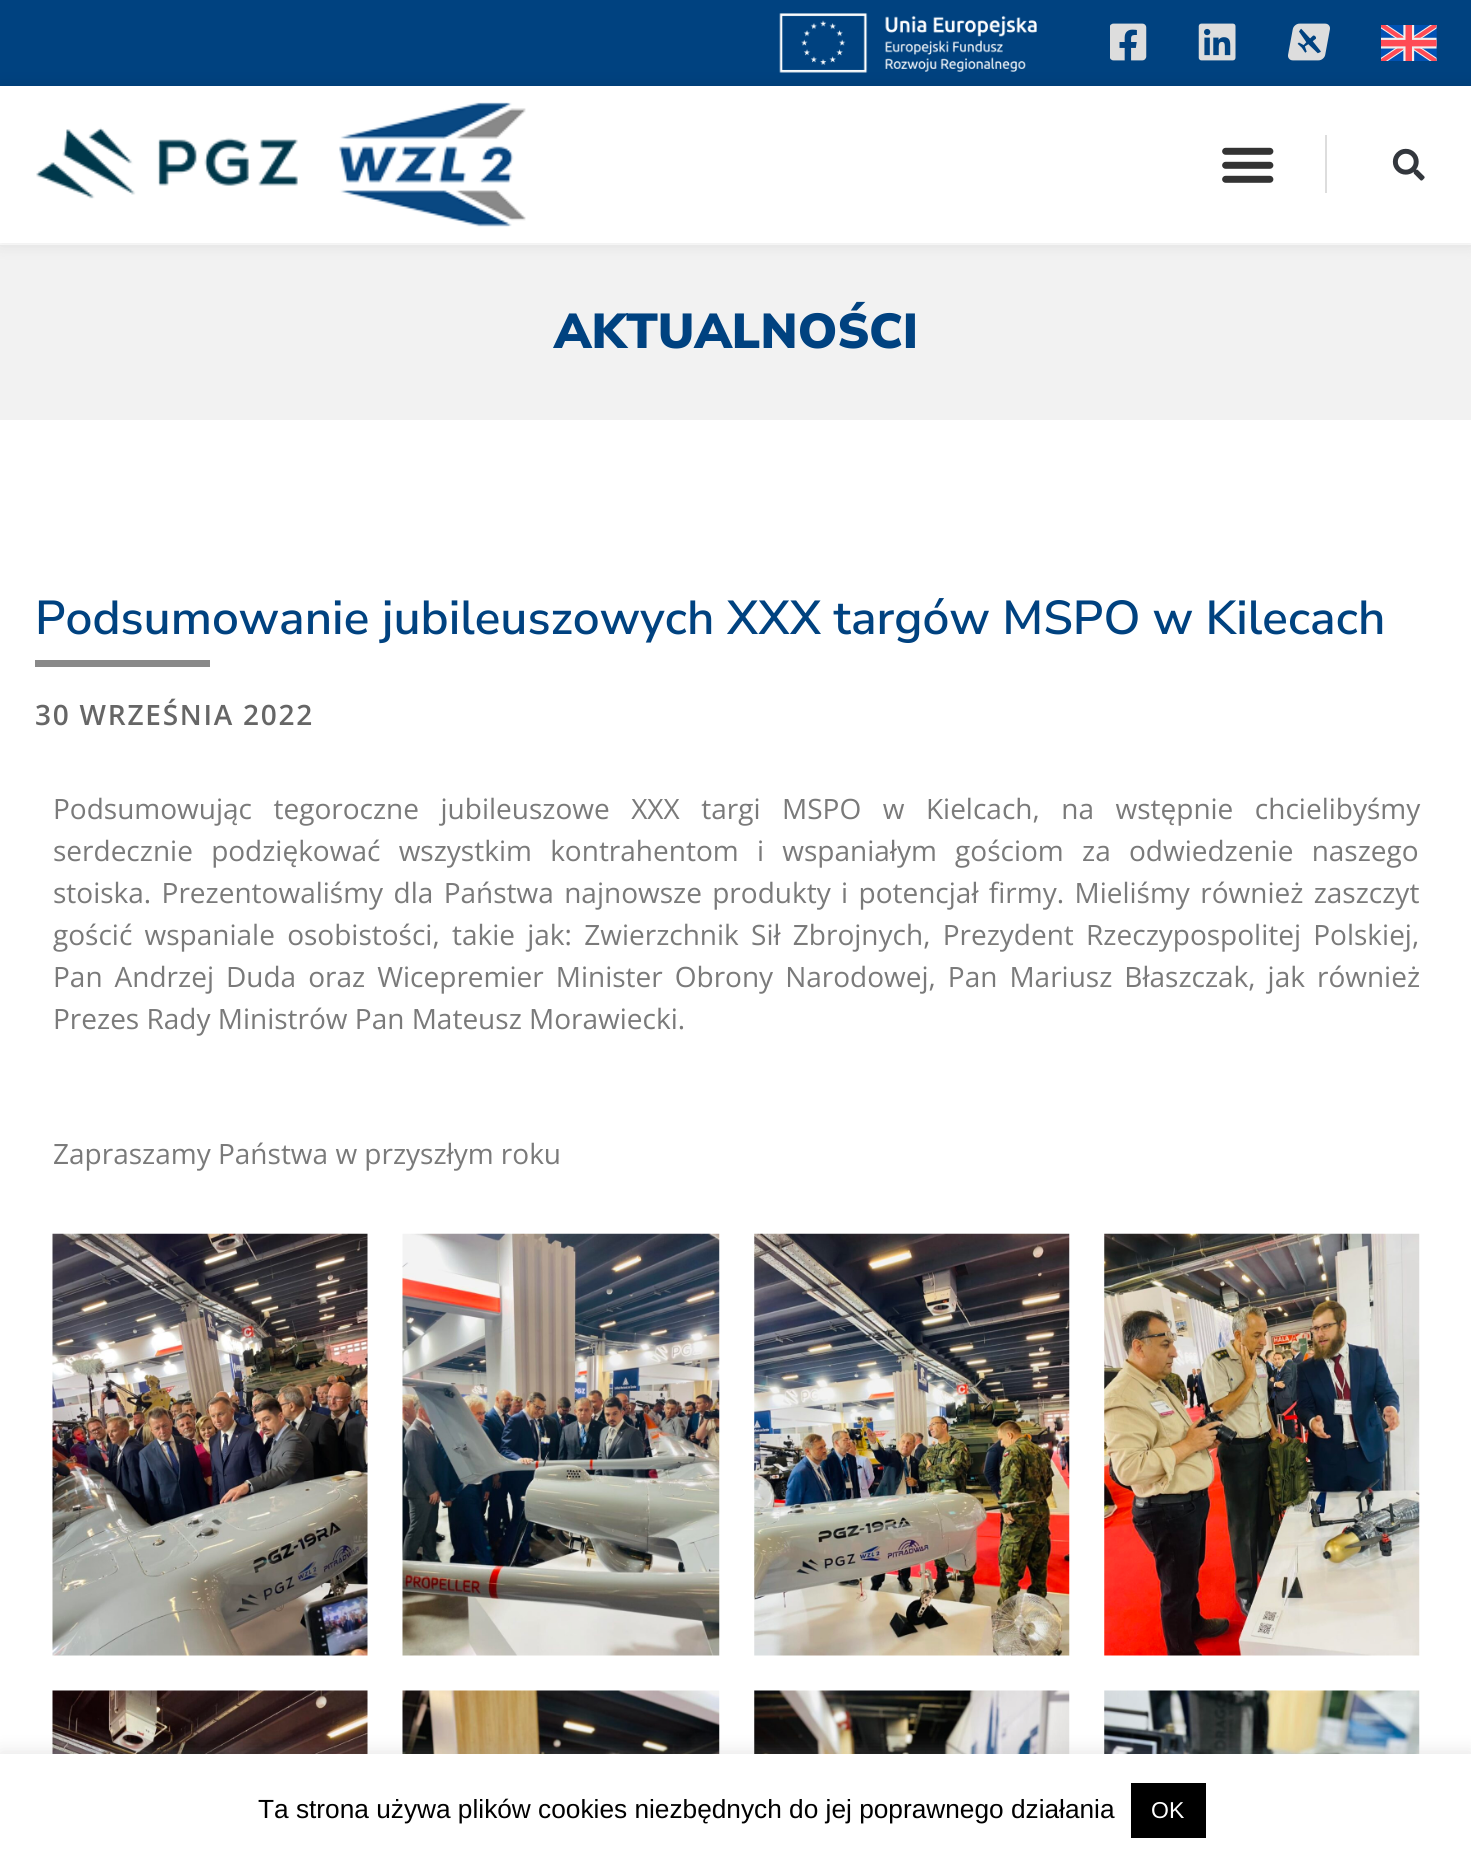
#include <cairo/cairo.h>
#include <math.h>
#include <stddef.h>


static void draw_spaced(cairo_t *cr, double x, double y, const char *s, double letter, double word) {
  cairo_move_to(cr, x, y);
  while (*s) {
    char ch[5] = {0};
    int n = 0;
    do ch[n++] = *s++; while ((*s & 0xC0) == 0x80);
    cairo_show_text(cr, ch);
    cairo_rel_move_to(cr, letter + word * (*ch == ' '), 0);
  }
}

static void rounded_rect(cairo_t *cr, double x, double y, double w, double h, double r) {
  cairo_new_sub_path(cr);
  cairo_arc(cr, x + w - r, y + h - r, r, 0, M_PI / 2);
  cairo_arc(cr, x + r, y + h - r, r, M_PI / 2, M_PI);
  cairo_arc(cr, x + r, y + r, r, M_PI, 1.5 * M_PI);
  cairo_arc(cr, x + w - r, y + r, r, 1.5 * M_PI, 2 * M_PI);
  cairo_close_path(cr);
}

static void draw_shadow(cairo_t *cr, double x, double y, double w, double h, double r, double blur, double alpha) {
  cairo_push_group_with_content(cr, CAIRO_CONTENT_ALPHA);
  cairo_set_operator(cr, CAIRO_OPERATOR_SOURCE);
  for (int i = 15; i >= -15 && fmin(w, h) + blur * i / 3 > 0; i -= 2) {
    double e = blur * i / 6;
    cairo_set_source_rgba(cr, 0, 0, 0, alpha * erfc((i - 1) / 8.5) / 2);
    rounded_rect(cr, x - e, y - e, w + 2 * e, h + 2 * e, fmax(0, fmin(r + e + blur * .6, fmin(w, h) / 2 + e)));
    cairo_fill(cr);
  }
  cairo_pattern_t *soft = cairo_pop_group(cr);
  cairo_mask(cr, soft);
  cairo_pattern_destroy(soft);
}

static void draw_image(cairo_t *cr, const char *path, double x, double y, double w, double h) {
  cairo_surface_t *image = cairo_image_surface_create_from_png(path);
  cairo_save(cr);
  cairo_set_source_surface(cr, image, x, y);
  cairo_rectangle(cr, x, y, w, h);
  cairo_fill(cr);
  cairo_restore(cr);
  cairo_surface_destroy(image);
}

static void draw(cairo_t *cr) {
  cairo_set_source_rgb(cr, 1, 1, 1);
  cairo_paint(cr);
  cairo_set_source_rgb(cr, 0, 66 / 255.0, 128 / 255.0);
  cairo_rectangle(cr, 0, 0, 1471, 86);
  cairo_fill(cr);
  draw_image(cr, "images/1.png", 779, 13, 258, 60);
  draw_image(cr, "images/2.png", 1110, 23, 37, 38);
  draw_image(cr, "images/3.png", 1198, 23, 38, 38);
  draw_image(cr, "images/4.png", 1288, 23, 42, 38);
  draw_image(cr, "images/5.png", 1381, 25, 56, 36);
  cairo_set_source_rgb(cr, 242 / 255.0, 242 / 255.0, 242 / 255.0);
  cairo_rectangle(cr, 0, 245, 1471, 175);
  cairo_fill(cr);
  cairo_save(cr);
  cairo_set_fill_rule(cr, CAIRO_FILL_RULE_EVEN_ODD);
  cairo_new_path(cr);
  cairo_move_to(cr, 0, 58);
  cairo_line_to(cr, 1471, 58);
  cairo_line_to(cr, 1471, 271);
  cairo_line_to(cr, 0, 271);
  cairo_close_path(cr);
  cairo_move_to(cr, 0, 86);
  cairo_line_to(cr, 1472, 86);
  cairo_line_to(cr, 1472, 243);
  cairo_line_to(cr, 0, 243);
  cairo_close_path(cr);
  cairo_clip(cr);
  cairo_set_source_rgb(cr, 0, 0, 0);
  draw_shadow(cr, 0, 86, 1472, 157, 0, 9, 0.1);
  cairo_restore(cr);
  draw_image(cr, "images/6.png", 36, 127, 262, 72);
  draw_image(cr, "images/7.png", 339, 102, 187, 125);
  draw_image(cr, "images/8.png", 1222, 147, 52, 36);
  cairo_set_source_rgb(cr, 221 / 255.0, 221 / 255.0, 221 / 255.0);
  cairo_rectangle(cr, 1325, 135, 2, 58);
  cairo_fill(cr);
  draw_image(cr, "images/9.png", 1392, 148, 33, 33);
  cairo_set_source_rgb(cr, 137 / 255.0, 137 / 255.0, 137 / 255.0);
  cairo_rectangle(cr, 35, 660, 175, 7);
  cairo_fill(cr);
  draw_image(cr, "images/10.png", 52, 1233, 316, 423);
  draw_image(cr, "images/11.png", 402, 1233, 318, 423);
  draw_image(cr, "images/12.png", 754, 1233, 316, 423);
  draw_image(cr, "images/13.png", 1104, 1233, 316, 423);
  draw_image(cr, "images/14.png", 52, 1690, 316, 64);
  draw_image(cr, "images/15.png", 402, 1690, 318, 64);
  draw_image(cr, "images/16.png", 754, 1690, 316, 64);
  draw_image(cr, "images/17.png", 1104, 1690, 316, 64);
  cairo_set_source_rgb(cr, 172 / 255.0, 171 / 255.0, 171 / 255.0);
  draw_shadow(cr, 0, 1752, 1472, 114, 0, 9, 0.3);
  cairo_set_source_rgb(cr, 1, 1, 1);
  cairo_rectangle(cr, 0, 1754, 1471, 113);
  cairo_fill(cr);
  cairo_set_source_rgb(cr, 0, 0, 0);
  cairo_rectangle(cr, 1131, 1783, 75, 55);
  cairo_fill(cr);
  cairo_select_font_face(cr, "Nunito Sans Black", CAIRO_FONT_SLANT_NORMAL, CAIRO_FONT_WEIGHT_NORMAL);
  cairo_set_font_size(cr, 49);
  cairo_set_source_rgb(cr, 0, 66 / 255.0, 128 / 255.0);
  cairo_move_to(cr, 554, 348);
  cairo_show_text(cr, "AKTUALNOŚCI");
  cairo_select_font_face(cr, "Nunito Sans SemiBold", CAIRO_FONT_SLANT_NORMAL, CAIRO_FONT_WEIGHT_NORMAL);
  cairo_set_font_size(cr, 47.6);
  cairo_move_to(cr, 35, 634);
  cairo_show_text(cr, "Podsumowanie jubileuszowych XXX targów MSPO w Kilecach");
  cairo_select_font_face(cr, "Open Sans SemiBold", CAIRO_FONT_SLANT_NORMAL, CAIRO_FONT_WEIGHT_NORMAL);
  cairo_set_font_size(cr, 28);
  cairo_set_source_rgb(cr, 102 / 255.0, 102 / 255.0, 102 / 255.0);
  draw_spaced(cr, 35, 725, "30 WRZEŚNIA 2022", 1.75, 0);
  cairo_select_font_face(cr, "Open Sans", CAIRO_FONT_SLANT_NORMAL, CAIRO_FONT_WEIGHT_NORMAL);
  cairo_set_source_rgb(cr, 122 / 255.0, 122 / 255.0, 122 / 255.0);
  draw_spaced(cr, 53, 819, "Podsumowując tegoroczne jubileuszowe XXX targi MSPO w Kielcach, na wstępnie chcielibyśmy", 0, 14.25);
  draw_spaced(cr, 53, 861, "serdecznie podziękować wszystkim kontrahentom i wspaniałym gościom za odwiedzenie naszego", 0, 11);
  draw_spaced(cr, 53, 903, "stoiska. Prezentowaliśmy dla Państwa najnowsze produkty i potencjał firmy. Mieliśmy również zaszczyt", 0, 3.1);
  draw_spaced(cr, 53, 945, "gościć wspaniale osobistości, takie jak: Zwierzchnik Sił Zbrojnych, Prezydent Rzeczypospolitej Polskiej,", 0, 5);
  draw_spaced(cr, 53, 987, "Pan Andrzej Duda oraz Wicepremier Minister Obrony Narodowej, Pan Mariusz Błaszczak, jak również", 0, 4.75);
  cairo_move_to(cr, 53, 1029);
  cairo_show_text(cr, "Prezes Rady Ministrów Pan Mateusz Morawiecki.");
  cairo_move_to(cr, 53, 1164);
  cairo_show_text(cr, "Zapraszamy Państwa w przyszłym roku");
  cairo_select_font_face(cr, "Liberation Sans", CAIRO_FONT_SLANT_NORMAL, CAIRO_FONT_WEIGHT_NORMAL);
  cairo_set_font_size(cr, 26.25);
  cairo_set_source_rgb(cr, 0, 0, 0);
  cairo_move_to(cr, 258, 1818);
  cairo_show_text(cr, "Ta strona używa plików cookies niezbędnych do jej poprawnego działania");
  cairo_set_font_size(cr, 23);
  cairo_set_source_rgb(cr, 1, 1, 1);
  cairo_move_to(cr, 1151, 1818);
  cairo_show_text(cr, "OK");
}

int main(void) {
  cairo_surface_t *surface = cairo_image_surface_create(CAIRO_FORMAT_RGB24, 1471, 1867);
  cairo_t *cr = cairo_create(surface);
  cairo_font_options_t *options = cairo_font_options_create();
  cairo_font_options_set_hint_metrics(options, CAIRO_HINT_METRICS_OFF);
  cairo_font_options_set_hint_style(options, CAIRO_HINT_STYLE_NONE);
  cairo_set_font_options(cr, options);
  cairo_set_miter_limit(cr, 4);
  draw(cr);
  cairo_surface_write_to_png(surface, "out.png");
  cairo_font_options_destroy(options);
  cairo_destroy(cr);
  cairo_surface_destroy(surface);
  return 0;
}
